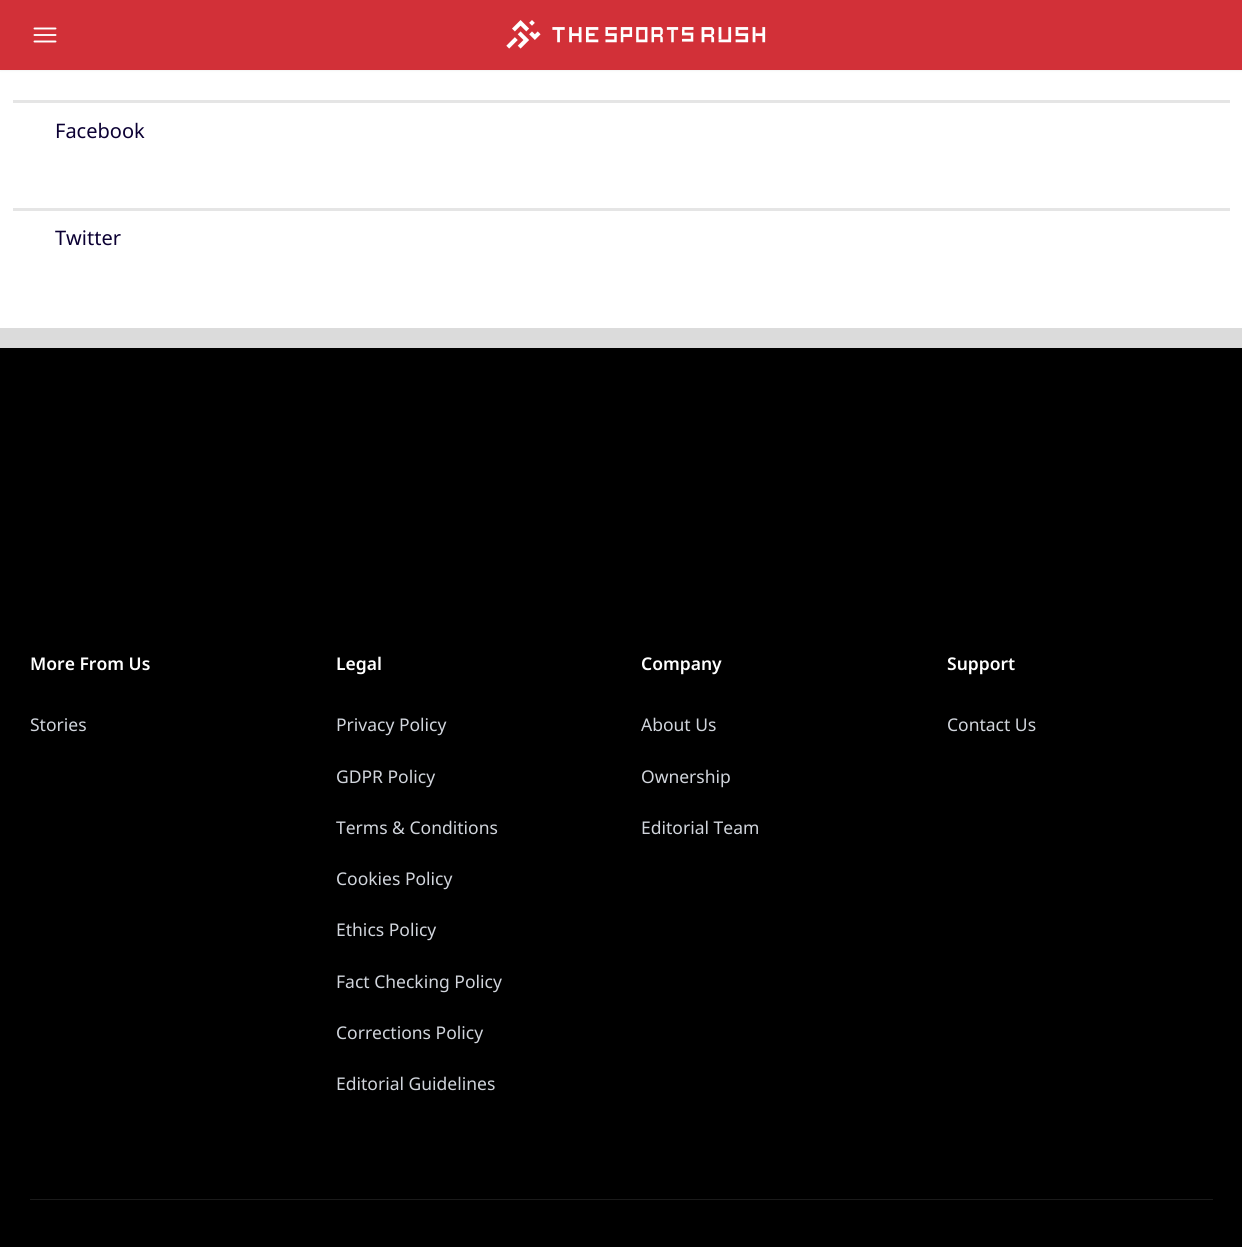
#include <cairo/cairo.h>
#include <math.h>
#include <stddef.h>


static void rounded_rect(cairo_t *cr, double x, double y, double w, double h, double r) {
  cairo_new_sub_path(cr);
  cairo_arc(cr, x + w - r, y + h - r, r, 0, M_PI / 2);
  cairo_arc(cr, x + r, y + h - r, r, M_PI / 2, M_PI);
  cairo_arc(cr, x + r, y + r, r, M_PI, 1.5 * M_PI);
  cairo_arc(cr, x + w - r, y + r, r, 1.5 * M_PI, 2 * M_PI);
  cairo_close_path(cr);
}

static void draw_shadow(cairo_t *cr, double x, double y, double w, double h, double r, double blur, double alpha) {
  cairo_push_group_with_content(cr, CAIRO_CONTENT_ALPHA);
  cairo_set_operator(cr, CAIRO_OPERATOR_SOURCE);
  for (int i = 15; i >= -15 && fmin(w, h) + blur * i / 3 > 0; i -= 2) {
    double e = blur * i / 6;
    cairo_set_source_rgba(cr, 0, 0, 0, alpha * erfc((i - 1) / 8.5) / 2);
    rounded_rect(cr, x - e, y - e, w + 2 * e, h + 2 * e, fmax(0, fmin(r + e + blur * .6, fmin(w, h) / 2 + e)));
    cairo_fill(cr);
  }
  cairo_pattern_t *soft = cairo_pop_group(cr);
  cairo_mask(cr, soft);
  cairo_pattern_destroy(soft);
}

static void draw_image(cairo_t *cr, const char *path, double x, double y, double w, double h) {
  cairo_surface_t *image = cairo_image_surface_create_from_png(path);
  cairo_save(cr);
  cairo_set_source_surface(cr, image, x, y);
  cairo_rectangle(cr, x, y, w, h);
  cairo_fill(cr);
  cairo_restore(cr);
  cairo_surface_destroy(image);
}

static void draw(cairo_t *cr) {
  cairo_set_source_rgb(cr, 219 / 255.0, 219 / 255.0, 219 / 255.0);
  cairo_paint(cr);
  cairo_set_source_rgb(cr, 1, 1, 1);
  cairo_rectangle(cr, 0, 70, 1242, 258);
  cairo_fill(cr);
  cairo_set_source_rgb(cr, 0, 0, 0);
  draw_shadow(cr, 0, 1, 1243, 70, 0, 1, 0.05);
  cairo_set_source_rgb(cr, 210 / 255.0, 48 / 255.0, 56 / 255.0);
  cairo_rectangle(cr, 0, 0, 1242, 70);
  cairo_fill(cr);
  cairo_new_path(cr);
  cairo_move_to(cr, 34.5, 28.5);
  cairo_line_to(cr, 55.5, 28.5);
  cairo_move_to(cr, 34.5, 35);
  cairo_line_to(cr, 55.5, 35);
  cairo_move_to(cr, 34.5, 41.5);
  cairo_line_to(cr, 55.5, 41.5);
  cairo_set_source_rgb(cr, 1, 1, 1);
  cairo_set_line_width(cr, 1.9);
  cairo_set_line_cap(cr, CAIRO_LINE_CAP_ROUND);
  cairo_set_line_join(cr, CAIRO_LINE_JOIN_ROUND);
  cairo_stroke(cr);
  draw_image(cr, "images/1.png", 506, 20, 260, 29);
  cairo_set_source_rgb(cr, 229 / 255.0, 229 / 255.0, 229 / 255.0);
  cairo_rectangle(cr, 13, 100, 1217, 3);
  cairo_fill(cr);
  cairo_rectangle(cr, 13, 208, 1217, 3);
  cairo_fill(cr);
  cairo_set_source_rgb(cr, 0, 0, 0);
  cairo_rectangle(cr, 0, 348, 1242, 899);
  cairo_fill(cr);
  cairo_set_source_rgb(cr, 26 / 255.0, 26 / 255.0, 26 / 255.0);
  cairo_rectangle(cr, 30, 1199, 1183, 1);
  cairo_fill(cr);
  cairo_select_font_face(cr, "Noto Sans", CAIRO_FONT_SLANT_NORMAL, CAIRO_FONT_WEIGHT_NORMAL);
  cairo_set_font_size(cr, 20);
  cairo_set_source_rgb(cr, 11 / 255.0, 0, 51 / 255.0);
  cairo_move_to(cr, 55, 138);
  cairo_show_text(cr, "Facebook");
  cairo_move_to(cr, 55, 245);
  cairo_show_text(cr, "Twitter");
  cairo_select_font_face(cr, "Noto Sans SemiBold", CAIRO_FONT_SLANT_NORMAL, CAIRO_FONT_WEIGHT_NORMAL);
  cairo_set_font_size(cr, 17.5);
  cairo_set_source_rgb(cr, 1, 1, 1);
  cairo_move_to(cr, 30, 670);
  cairo_show_text(cr, "More From Us");
  cairo_select_font_face(cr, "Noto Sans", CAIRO_FONT_SLANT_NORMAL, CAIRO_FONT_WEIGHT_NORMAL);
  cairo_set_source_rgb(cr, 209 / 255.0, 213 / 255.0, 220 / 255.0);
  cairo_move_to(cr, 30, 731);
  cairo_show_text(cr, "Stories");
  cairo_select_font_face(cr, "Noto Sans SemiBold", CAIRO_FONT_SLANT_NORMAL, CAIRO_FONT_WEIGHT_NORMAL);
  cairo_set_source_rgb(cr, 1, 1, 1);
  cairo_move_to(cr, 336, 670);
  cairo_show_text(cr, "Legal");
  cairo_select_font_face(cr, "Noto Sans", CAIRO_FONT_SLANT_NORMAL, CAIRO_FONT_WEIGHT_NORMAL);
  cairo_set_source_rgb(cr, 209 / 255.0, 213 / 255.0, 220 / 255.0);
  cairo_move_to(cr, 336, 731);
  cairo_show_text(cr, "Privacy Policy");
  cairo_move_to(cr, 336, 783);
  cairo_show_text(cr, "GDPR Policy");
  cairo_move_to(cr, 336, 834);
  cairo_show_text(cr, "Terms & Conditions");
  cairo_move_to(cr, 336, 885);
  cairo_show_text(cr, "Cookies Policy");
  cairo_move_to(cr, 336, 936);
  cairo_show_text(cr, "Ethics Policy");
  cairo_move_to(cr, 336, 988);
  cairo_show_text(cr, "Fact Checking Policy");
  cairo_move_to(cr, 336, 1039);
  cairo_show_text(cr, "Corrections Policy");
  cairo_move_to(cr, 336, 1090);
  cairo_show_text(cr, "Editorial Guidelines");
  cairo_select_font_face(cr, "Noto Sans SemiBold", CAIRO_FONT_SLANT_NORMAL, CAIRO_FONT_WEIGHT_NORMAL);
  cairo_set_source_rgb(cr, 1, 1, 1);
  cairo_move_to(cr, 641, 670);
  cairo_show_text(cr, "Company");
  cairo_select_font_face(cr, "Noto Sans", CAIRO_FONT_SLANT_NORMAL, CAIRO_FONT_WEIGHT_NORMAL);
  cairo_set_source_rgb(cr, 209 / 255.0, 213 / 255.0, 220 / 255.0);
  cairo_move_to(cr, 641, 731);
  cairo_show_text(cr, "About Us");
  cairo_move_to(cr, 641, 783);
  cairo_show_text(cr, "Ownership");
  cairo_move_to(cr, 641, 834);
  cairo_show_text(cr, "Editorial Team");
  cairo_select_font_face(cr, "Noto Sans SemiBold", CAIRO_FONT_SLANT_NORMAL, CAIRO_FONT_WEIGHT_NORMAL);
  cairo_set_source_rgb(cr, 1, 1, 1);
  cairo_move_to(cr, 947, 670);
  cairo_show_text(cr, "Support");
  cairo_select_font_face(cr, "Noto Sans", CAIRO_FONT_SLANT_NORMAL, CAIRO_FONT_WEIGHT_NORMAL);
  cairo_set_source_rgb(cr, 209 / 255.0, 213 / 255.0, 220 / 255.0);
  cairo_move_to(cr, 947, 731);
  cairo_show_text(cr, "Contact Us");
}

int main(void) {
  cairo_surface_t *surface = cairo_image_surface_create(CAIRO_FORMAT_RGB24, 1242, 1247);
  cairo_t *cr = cairo_create(surface);
  cairo_font_options_t *options = cairo_font_options_create();
  cairo_font_options_set_hint_metrics(options, CAIRO_HINT_METRICS_OFF);
  cairo_font_options_set_hint_style(options, CAIRO_HINT_STYLE_NONE);
  cairo_set_font_options(cr, options);
  cairo_set_miter_limit(cr, 4);
  draw(cr);
  cairo_surface_write_to_png(surface, "out.png");
  cairo_font_options_destroy(options);
  cairo_destroy(cr);
  cairo_surface_destroy(surface);
  return 0;
}
